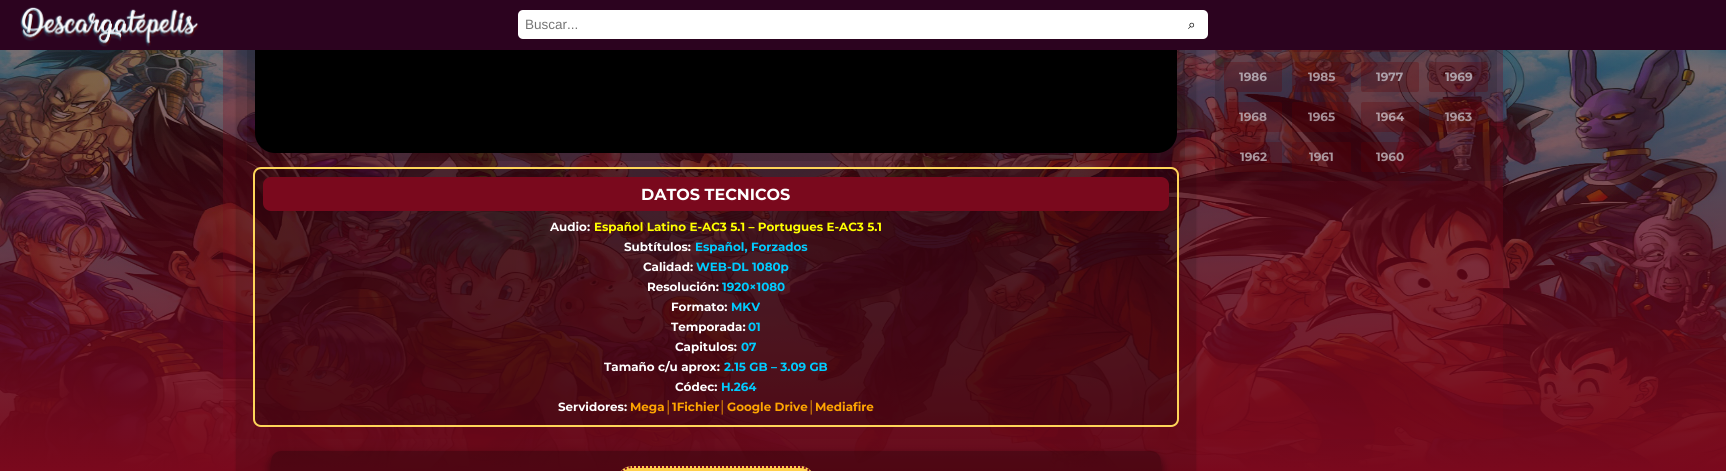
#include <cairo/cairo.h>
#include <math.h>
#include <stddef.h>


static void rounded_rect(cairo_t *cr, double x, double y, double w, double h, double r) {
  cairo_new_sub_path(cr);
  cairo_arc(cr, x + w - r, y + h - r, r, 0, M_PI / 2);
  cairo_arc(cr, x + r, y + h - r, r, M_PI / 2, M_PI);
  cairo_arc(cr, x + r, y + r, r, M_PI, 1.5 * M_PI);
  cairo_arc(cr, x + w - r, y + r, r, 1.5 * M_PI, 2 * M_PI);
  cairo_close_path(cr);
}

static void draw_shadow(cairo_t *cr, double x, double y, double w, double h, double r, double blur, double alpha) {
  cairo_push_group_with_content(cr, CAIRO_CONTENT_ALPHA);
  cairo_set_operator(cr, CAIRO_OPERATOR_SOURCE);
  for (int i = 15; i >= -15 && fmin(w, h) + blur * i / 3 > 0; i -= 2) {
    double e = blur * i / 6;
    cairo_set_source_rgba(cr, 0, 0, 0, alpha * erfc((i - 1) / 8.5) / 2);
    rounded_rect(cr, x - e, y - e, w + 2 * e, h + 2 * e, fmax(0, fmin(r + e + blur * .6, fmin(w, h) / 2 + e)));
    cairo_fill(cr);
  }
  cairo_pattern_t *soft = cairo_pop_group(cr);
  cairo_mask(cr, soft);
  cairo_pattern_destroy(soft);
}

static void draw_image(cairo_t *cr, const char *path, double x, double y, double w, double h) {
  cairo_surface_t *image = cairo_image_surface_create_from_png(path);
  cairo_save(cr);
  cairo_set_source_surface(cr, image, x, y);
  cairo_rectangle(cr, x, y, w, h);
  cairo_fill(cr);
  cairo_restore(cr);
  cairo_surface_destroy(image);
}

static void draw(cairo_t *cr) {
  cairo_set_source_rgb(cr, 1, 1, 1);
  cairo_paint(cr);
  draw_image(cr, "images/1.png", 0, 50, 1726, 421);
  cairo_set_source_rgba(cr, 122 / 255.0, 9 / 255.0, 29 / 255.0, 0.3);
  cairo_rectangle(cr, 223, 50, 1280, 389);
  cairo_fill(cr);
  cairo_set_source_rgba(cr, 0, 0, 0, 0.13);
  rounded_rect(cr, 1215, -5, 282, 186, 5);
  cairo_fill(cr);
  cairo_set_source_rgba(cr, 99 / 255.0, 0, 4 / 255.0, 0.29);
  rounded_rect(cr, 1224, 22, 58, 30, 2);
  cairo_fill(cr);
  rounded_rect(cr, 1292, 22, 59, 30, 2);
  cairo_fill(cr);
  rounded_rect(cr, 1361, 22, 58, 30, 2);
  cairo_fill(cr);
  rounded_rect(cr, 1429, 22, 59, 30, 2);
  cairo_fill(cr);
  cairo_save(cr);
  cairo_set_fill_rule(cr, CAIRO_FILL_RULE_EVEN_ODD);
  cairo_new_path(cr);
  cairo_move_to(cr, 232, 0);
  cairo_line_to(cr, 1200, 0);
  cairo_line_to(cr, 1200, 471);
  cairo_line_to(cr, 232, 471);
  cairo_close_path(cr);
  cairo_move_to(cr, 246, -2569);
  cairo_line_to(cr, 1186, -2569);
  cairo_curve_to(cr, 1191.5, -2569, 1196, -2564.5, 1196, -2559);
  cairo_line_to(cr, 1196, 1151);
  cairo_curve_to(cr, 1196, 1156.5, 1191.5, 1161, 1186, 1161);
  cairo_line_to(cr, 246, 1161);
  cairo_curve_to(cr, 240.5, 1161, 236, 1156.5, 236, 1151);
  cairo_line_to(cr, 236, -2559);
  cairo_curve_to(cr, 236, -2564.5, 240.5, -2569, 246, -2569);
  cairo_close_path(cr);
  cairo_clip(cr);
  cairo_set_source_rgb(cr, 0, 0, 0);
  draw_shadow(cr, 235, -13, 962, 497, 11, 0.5, 0.07);
  cairo_restore(cr);
  cairo_set_source_rgba(cr, 0, 0, 0, 0.13);
  cairo_rectangle(cr, 236, 50, 960, 421);
  cairo_fill(cr);
  cairo_rectangle(cr, 247, 50, 938, 111);
  cairo_fill(cr);
  cairo_set_source_rgb(cr, 0, 0, 0);
  rounded_rect(cr, 255, -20, 922, 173, 20);
  cairo_fill(cr);
  cairo_set_source_rgb(cr, 44 / 255.0, 3 / 255.0, 31 / 255.0);
  cairo_rectangle(cr, 0, 0, 1726, 50);
  cairo_fill(cr);
  draw_image(cr, "images/2.png", 20, 7, 179, 40);
  cairo_set_source_rgb(cr, 1, 1, 1);
  rounded_rect(cr, 518, 10, 690, 29, 5);
  cairo_fill(cr);
  cairo_set_source_rgba(cr, 99 / 255.0, 0, 4 / 255.0, 0.29);
  rounded_rect(cr, 1224, 62, 58, 30, 2);
  cairo_fill(cr);
  rounded_rect(cr, 1292, 62, 59, 30, 2);
  cairo_fill(cr);
  rounded_rect(cr, 1361, 62, 58, 30, 2);
  cairo_fill(cr);
  rounded_rect(cr, 1429, 62, 59, 30, 2);
  cairo_fill(cr);
  rounded_rect(cr, 1224, 102, 58, 30, 2);
  cairo_fill(cr);
  rounded_rect(cr, 1292, 102, 59, 30, 2);
  cairo_fill(cr);
  rounded_rect(cr, 1361, 102, 58, 30, 2);
  cairo_fill(cr);
  rounded_rect(cr, 1429, 102, 59, 30, 2);
  cairo_fill(cr);
  rounded_rect(cr, 1224, 142, 58, 30, 2);
  cairo_fill(cr);
  rounded_rect(cr, 1292, 142, 59, 30, 2);
  cairo_fill(cr);
  rounded_rect(cr, 1361, 142, 58, 30, 2);
  cairo_fill(cr);
  cairo_set_source_rgba(cr, 0, 0, 0, 0.25);
  rounded_rect(cr, 254, 168, 924, 258, 7);
  cairo_fill_preserve(cr);
  cairo_set_source_rgb(cr, 254 / 255.0, 213 / 255.0, 89 / 255.0);
  cairo_stroke(cr);
  cairo_set_source_rgb(cr, 122 / 255.0, 9 / 255.0, 29 / 255.0);
  rounded_rect(cr, 263, 177, 906, 34, 8);
  cairo_fill(cr);
  cairo_save(cr);
  cairo_set_fill_rule(cr, CAIRO_FILL_RULE_EVEN_ODD);
  cairo_new_path(cr);
  cairo_move_to(cr, 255, 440);
  cairo_line_to(cr, 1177, 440);
  cairo_line_to(cr, 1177, 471);
  cairo_line_to(cr, 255, 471);
  cairo_close_path(cr);
  cairo_move_to(cr, 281, 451);
  cairo_line_to(cr, 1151, 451);
  cairo_curve_to(cr, 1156.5, 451, 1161, 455.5, 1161, 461);
  cairo_line_to(cr, 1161, 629);
  cairo_curve_to(cr, 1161, 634.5, 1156.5, 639, 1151, 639);
  cairo_line_to(cr, 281, 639);
  cairo_curve_to(cr, 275.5, 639, 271, 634.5, 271, 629);
  cairo_line_to(cr, 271, 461);
  cairo_curve_to(cr, 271, 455.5, 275.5, 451, 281, 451);
  cairo_close_path(cr);
  cairo_clip(cr);
  cairo_set_source_rgb(cr, 0, 0, 0);
  draw_shadow(cr, 271, 456, 890, 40, 10, 5, 0.5);
  cairo_restore(cr);
  cairo_set_source_rgba(cr, 0, 0, 0, 0.25);
  rounded_rect(cr, 271, 451, 890, 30, 10);
  cairo_fill(cr);
  cairo_set_source_rgb(cr, 1, 208 / 255.0, 76 / 255.0);
  rounded_rect(cr, 617, 466, 198, 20, 15);
  cairo_fill(cr);
  cairo_new_path(cr);
  cairo_move_to(cr, 632, 467);
  cairo_line_to(cr, 800, 467);
  cairo_curve_to(cr, 807.5, 467, 814, 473.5, 814, 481);
  cairo_line_to(cr, 814, 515);
  cairo_curve_to(cr, 814, 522.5, 807.5, 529, 800, 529);
  cairo_line_to(cr, 632, 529);
  cairo_curve_to(cr, 624.5, 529, 618, 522.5, 618, 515);
  cairo_line_to(cr, 618, 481);
  cairo_curve_to(cr, 618, 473.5, 624.5, 467, 632, 467);
  cairo_close_path(cr);
  cairo_set_source_rgb(cr, 122 / 255.0, 9 / 255.0, 29 / 255.0);
  cairo_set_dash(cr, (double[]){2, 2}, 2, 0);
  cairo_stroke(cr);
  cairo_select_font_face(cr, "Liberation Sans", CAIRO_FONT_SLANT_NORMAL, CAIRO_FONT_WEIGHT_NORMAL);
  cairo_set_font_size(cr, 13.5);
  cairo_set_source_rgb(cr, 117 / 255.0, 117 / 255.0, 117 / 255.0);
  cairo_move_to(cr, 525, 29);
  cairo_show_text(cr, "Buscar...");
  cairo_select_font_face(cr, "FreeSerif", CAIRO_FONT_SLANT_NORMAL, CAIRO_FONT_WEIGHT_NORMAL);
  cairo_set_source_rgb(cr, 0, 0, 0);
  cairo_move_to(cr, 1188, 29);
  cairo_show_text(cr, "⌕");
  cairo_select_font_face(cr, "Montserrat", CAIRO_FONT_SLANT_NORMAL, CAIRO_FONT_WEIGHT_BOLD);
  cairo_set_font_size(cr, 12);
  cairo_set_source_rgb(cr, 173 / 255.0, 161 / 255.0, 170 / 255.0);
  cairo_move_to(cr, 1239, 81);
  cairo_show_text(cr, "1986");
  cairo_set_source_rgb(cr, 172 / 255.0, 152 / 255.0, 159 / 255.0);
  cairo_move_to(cr, 1308, 81);
  cairo_show_text(cr, "1985");
  cairo_set_source_rgb(cr, 173 / 255.0, 161 / 255.0, 170 / 255.0);
  cairo_move_to(cr, 1376, 81);
  cairo_show_text(cr, "1977");
  cairo_move_to(cr, 1445, 81);
  cairo_show_text(cr, "1969");
  cairo_set_source_rgb(cr, 172 / 255.0, 152 / 255.0, 159 / 255.0);
  cairo_move_to(cr, 1239, 121);
  cairo_show_text(cr, "1968");
  cairo_set_source_rgb(cr, 167 / 255.0, 146 / 255.0, 154 / 255.0);
  cairo_move_to(cr, 1308, 121);
  cairo_show_text(cr, "1965");
  cairo_set_source_rgb(cr, 178 / 255.0, 157 / 255.0, 164 / 255.0);
  cairo_move_to(cr, 1376, 121);
  cairo_show_text(cr, "1964");
  cairo_set_source_rgb(cr, 172 / 255.0, 152 / 255.0, 159 / 255.0);
  cairo_move_to(cr, 1445, 121);
  cairo_show_text(cr, "1963");
  cairo_move_to(cr, 1240, 161);
  cairo_show_text(cr, "1962");
  cairo_move_to(cr, 1309, 161);
  cairo_show_text(cr, "1961");
  cairo_move_to(cr, 1376, 161);
  cairo_show_text(cr, "1960");
  cairo_set_font_size(cr, 16);
  cairo_set_source_rgb(cr, 1, 1, 1);
  cairo_move_to(cr, 641, 200);
  cairo_show_text(cr, "DATOS TECNICOS");
  cairo_set_font_size(cr, 11.9);
  cairo_move_to(cr, 550, 231);
  cairo_show_text(cr, "Audio:");
  cairo_set_source_rgb(cr, 1, 1, 0);
  cairo_move_to(cr, 594, 231);
  cairo_show_text(cr, "Español Latino E-AC3 5.1 – Portugues E-AC3 5.1");
  cairo_set_source_rgb(cr, 1, 1, 1);
  cairo_move_to(cr, 624, 251);
  cairo_show_text(cr, "Subtítulos:");
  cairo_set_source_rgb(cr, 0, 204 / 255.0, 1);
  cairo_move_to(cr, 695, 251);
  cairo_show_text(cr, "Español, Forzados");
  cairo_set_source_rgb(cr, 1, 1, 1);
  cairo_move_to(cr, 643, 271);
  cairo_show_text(cr, "Calidad:");
  cairo_set_source_rgb(cr, 0, 204 / 255.0, 1);
  cairo_move_to(cr, 696, 271);
  cairo_show_text(cr, "WEB-DL 1080p");
  cairo_set_source_rgb(cr, 1, 1, 1);
  cairo_move_to(cr, 647, 291);
  cairo_show_text(cr, "Resolución:");
  cairo_set_source_rgb(cr, 0, 204 / 255.0, 1);
  cairo_move_to(cr, 722, 291);
  cairo_show_text(cr, "1920×1080");
  cairo_set_source_rgb(cr, 1, 1, 1);
  cairo_move_to(cr, 671, 311);
  cairo_show_text(cr, "Formato:");
  cairo_set_source_rgb(cr, 0, 204 / 255.0, 1);
  cairo_move_to(cr, 731, 311);
  cairo_show_text(cr, "MKV");
  cairo_set_source_rgb(cr, 1, 1, 1);
  cairo_move_to(cr, 671, 331);
  cairo_show_text(cr, "Temporada:");
  cairo_set_source_rgb(cr, 0, 204 / 255.0, 1);
  cairo_move_to(cr, 748, 331);
  cairo_show_text(cr, "01");
  cairo_set_source_rgb(cr, 1, 1, 1);
  cairo_move_to(cr, 675, 351);
  cairo_show_text(cr, "Capitulos:");
  cairo_set_source_rgb(cr, 0, 204 / 255.0, 1);
  cairo_move_to(cr, 741, 351);
  cairo_show_text(cr, "07");
  cairo_set_source_rgb(cr, 1, 1, 1);
  cairo_move_to(cr, 604, 371);
  cairo_show_text(cr, "Tamaño c/u aprox:");
  cairo_set_source_rgb(cr, 0, 204 / 255.0, 1);
  cairo_move_to(cr, 724, 371);
  cairo_show_text(cr, "2.15 GB – 3.09 GB");
  cairo_set_source_rgb(cr, 1, 1, 1);
  cairo_move_to(cr, 675, 391);
  cairo_show_text(cr, "Códec:");
  cairo_set_source_rgb(cr, 0, 204 / 255.0, 1);
  cairo_move_to(cr, 721, 391);
  cairo_show_text(cr, "H.264");
  cairo_set_source_rgb(cr, 1, 1, 1);
  cairo_move_to(cr, 558, 411);
  cairo_show_text(cr, "Servidores:");
  cairo_set_source_rgb(cr, 1, 165 / 255.0, 0);
  cairo_move_to(cr, 630, 411);
  cairo_show_text(cr, "Mega");
  cairo_select_font_face(cr, "Liberation Sans", CAIRO_FONT_SLANT_NORMAL, CAIRO_FONT_WEIGHT_BOLD);
  cairo_move_to(cr, 665, 411);
  cairo_show_text(cr, "│");
  cairo_select_font_face(cr, "Montserrat", CAIRO_FONT_SLANT_NORMAL, CAIRO_FONT_WEIGHT_BOLD);
  cairo_move_to(cr, 672, 411);
  cairo_show_text(cr, "1Fichier");
  cairo_select_font_face(cr, "Liberation Sans", CAIRO_FONT_SLANT_NORMAL, CAIRO_FONT_WEIGHT_BOLD);
  cairo_move_to(cr, 719, 411);
  cairo_show_text(cr, "│");
  cairo_select_font_face(cr, "Montserrat", CAIRO_FONT_SLANT_NORMAL, CAIRO_FONT_WEIGHT_BOLD);
  cairo_move_to(cr, 727, 411);
  cairo_show_text(cr, "Google Drive");
  cairo_select_font_face(cr, "Liberation Sans", CAIRO_FONT_SLANT_NORMAL, CAIRO_FONT_WEIGHT_BOLD);
  cairo_move_to(cr, 808, 411);
  cairo_show_text(cr, "│");
  cairo_select_font_face(cr, "Montserrat", CAIRO_FONT_SLANT_NORMAL, CAIRO_FONT_WEIGHT_BOLD);
  cairo_move_to(cr, 815, 411);
  cairo_show_text(cr, "Mediafire");
}

int main(void) {
  cairo_surface_t *surface = cairo_image_surface_create(CAIRO_FORMAT_RGB24, 1726, 471);
  cairo_t *cr = cairo_create(surface);
  cairo_font_options_t *options = cairo_font_options_create();
  cairo_font_options_set_hint_metrics(options, CAIRO_HINT_METRICS_OFF);
  cairo_font_options_set_hint_style(options, CAIRO_HINT_STYLE_NONE);
  cairo_set_font_options(cr, options);
  cairo_set_miter_limit(cr, 4);
  draw(cr);
  cairo_surface_write_to_png(surface, "out.png");
  cairo_font_options_destroy(options);
  cairo_destroy(cr);
  cairo_surface_destroy(surface);
  return 0;
}
